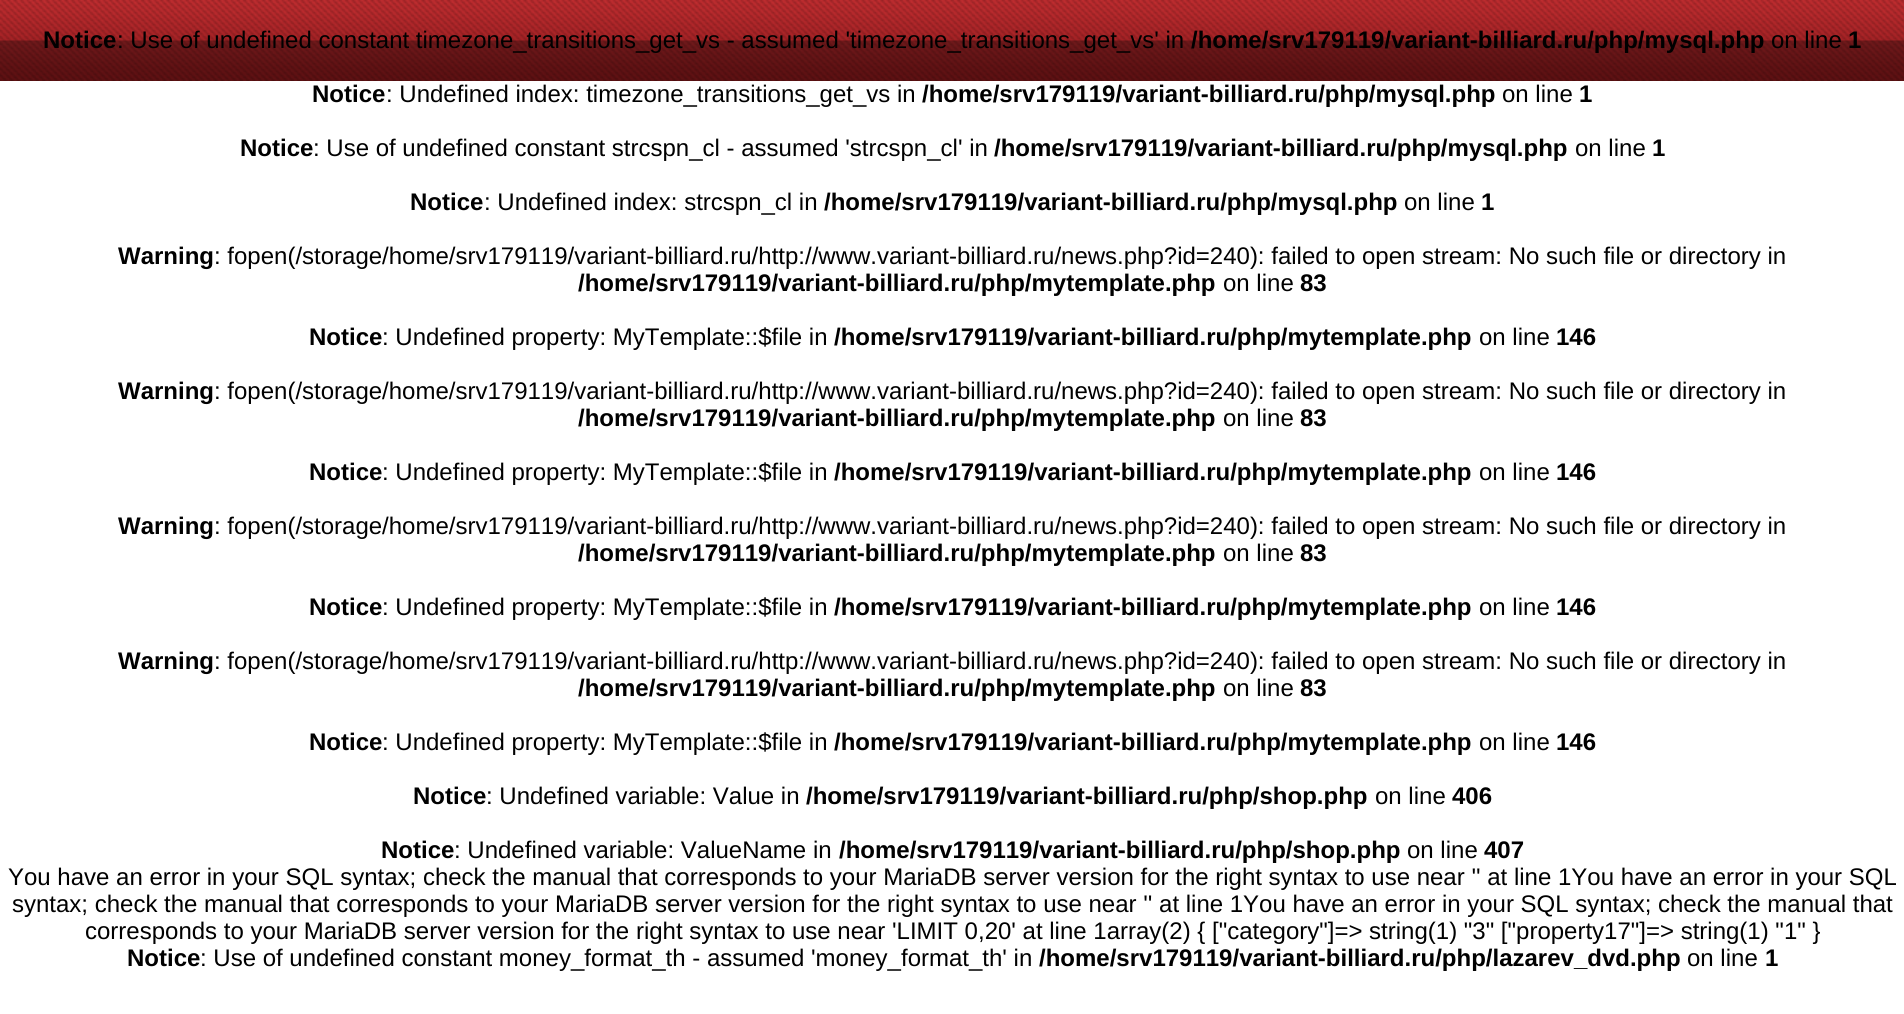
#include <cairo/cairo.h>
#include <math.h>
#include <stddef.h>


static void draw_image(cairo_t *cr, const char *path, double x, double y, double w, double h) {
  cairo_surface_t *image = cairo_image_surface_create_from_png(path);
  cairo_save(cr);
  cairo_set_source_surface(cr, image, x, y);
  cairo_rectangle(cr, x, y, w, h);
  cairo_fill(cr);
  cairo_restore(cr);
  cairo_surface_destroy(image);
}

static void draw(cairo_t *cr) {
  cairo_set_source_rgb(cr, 1, 1, 1);
  cairo_paint(cr);
  draw_image(cr, "images/1.png", 0, 0, 1904, 81);
  cairo_select_font_face(cr, "Liberation Sans", CAIRO_FONT_SLANT_NORMAL, CAIRO_FONT_WEIGHT_BOLD);
  cairo_set_font_size(cr, 24);
  cairo_set_source_rgb(cr, 0, 0, 0);
  cairo_move_to(cr, 43, 48);
  cairo_show_text(cr, "Notice");
  cairo_select_font_face(cr, "Liberation Sans", CAIRO_FONT_SLANT_NORMAL, CAIRO_FONT_WEIGHT_NORMAL);
  cairo_move_to(cr, 117, 48);
  cairo_show_text(cr, ": Use of undefined constant timezone_transitions_get_vs - assumed 'timezone_transitions_get_vs' in");
  cairo_select_font_face(cr, "Liberation Sans", CAIRO_FONT_SLANT_NORMAL, CAIRO_FONT_WEIGHT_BOLD);
  cairo_move_to(cr, 1191, 48);
  cairo_show_text(cr, "/home/srv179119/variant-billiard.ru/php/mysql.php");
  cairo_select_font_face(cr, "Liberation Sans", CAIRO_FONT_SLANT_NORMAL, CAIRO_FONT_WEIGHT_NORMAL);
  cairo_move_to(cr, 1771, 48);
  cairo_show_text(cr, "on line");
  cairo_select_font_face(cr, "Liberation Sans", CAIRO_FONT_SLANT_NORMAL, CAIRO_FONT_WEIGHT_BOLD);
  cairo_move_to(cr, 1848, 48);
  cairo_show_text(cr, "1");
  cairo_move_to(cr, 312, 102);
  cairo_show_text(cr, "Notice");
  cairo_select_font_face(cr, "Liberation Sans", CAIRO_FONT_SLANT_NORMAL, CAIRO_FONT_WEIGHT_NORMAL);
  cairo_move_to(cr, 386, 102);
  cairo_show_text(cr, ": Undefined index: timezone_transitions_get_vs in");
  cairo_select_font_face(cr, "Liberation Sans", CAIRO_FONT_SLANT_NORMAL, CAIRO_FONT_WEIGHT_BOLD);
  cairo_move_to(cr, 922, 102);
  cairo_show_text(cr, "/home/srv179119/variant-billiard.ru/php/mysql.php");
  cairo_select_font_face(cr, "Liberation Sans", CAIRO_FONT_SLANT_NORMAL, CAIRO_FONT_WEIGHT_NORMAL);
  cairo_move_to(cr, 1502, 102);
  cairo_show_text(cr, "on line");
  cairo_select_font_face(cr, "Liberation Sans", CAIRO_FONT_SLANT_NORMAL, CAIRO_FONT_WEIGHT_BOLD);
  cairo_move_to(cr, 1579, 102);
  cairo_show_text(cr, "1");
  cairo_move_to(cr, 240, 156);
  cairo_show_text(cr, "Notice");
  cairo_select_font_face(cr, "Liberation Sans", CAIRO_FONT_SLANT_NORMAL, CAIRO_FONT_WEIGHT_NORMAL);
  cairo_move_to(cr, 313, 156);
  cairo_show_text(cr, ": Use of undefined constant strcspn_cl - assumed 'strcspn_cl' in");
  cairo_select_font_face(cr, "Liberation Sans", CAIRO_FONT_SLANT_NORMAL, CAIRO_FONT_WEIGHT_BOLD);
  cairo_move_to(cr, 994, 156);
  cairo_show_text(cr, "/home/srv179119/variant-billiard.ru/php/mysql.php");
  cairo_select_font_face(cr, "Liberation Sans", CAIRO_FONT_SLANT_NORMAL, CAIRO_FONT_WEIGHT_NORMAL);
  cairo_move_to(cr, 1575, 156);
  cairo_show_text(cr, "on line");
  cairo_select_font_face(cr, "Liberation Sans", CAIRO_FONT_SLANT_NORMAL, CAIRO_FONT_WEIGHT_BOLD);
  cairo_move_to(cr, 1652, 156);
  cairo_show_text(cr, "1");
  cairo_move_to(cr, 410, 210);
  cairo_show_text(cr, "Notice");
  cairo_select_font_face(cr, "Liberation Sans", CAIRO_FONT_SLANT_NORMAL, CAIRO_FONT_WEIGHT_NORMAL);
  cairo_move_to(cr, 484, 210);
  cairo_show_text(cr, ": Undefined index: strcspn_cl in");
  cairo_select_font_face(cr, "Liberation Sans", CAIRO_FONT_SLANT_NORMAL, CAIRO_FONT_WEIGHT_BOLD);
  cairo_move_to(cr, 824, 210);
  cairo_show_text(cr, "/home/srv179119/variant-billiard.ru/php/mysql.php");
  cairo_select_font_face(cr, "Liberation Sans", CAIRO_FONT_SLANT_NORMAL, CAIRO_FONT_WEIGHT_NORMAL);
  cairo_move_to(cr, 1404, 210);
  cairo_show_text(cr, "on line");
  cairo_select_font_face(cr, "Liberation Sans", CAIRO_FONT_SLANT_NORMAL, CAIRO_FONT_WEIGHT_BOLD);
  cairo_move_to(cr, 1481, 210);
  cairo_show_text(cr, "1");
  cairo_move_to(cr, 118, 264);
  cairo_show_text(cr, "Warning");
  cairo_select_font_face(cr, "Liberation Sans", CAIRO_FONT_SLANT_NORMAL, CAIRO_FONT_WEIGHT_NORMAL);
  cairo_move_to(cr, 214, 264);
  cairo_show_text(cr, ": fopen(/storage/home/srv179119/variant-billiard.ru/http://www.variant-billiard.ru/news.php?id=240): failed to open stream: No such file or directory in");
  cairo_select_font_face(cr, "Liberation Sans", CAIRO_FONT_SLANT_NORMAL, CAIRO_FONT_WEIGHT_BOLD);
  cairo_move_to(cr, 578, 291);
  cairo_show_text(cr, "/home/srv179119/variant-billiard.ru/php/mytemplate.php");
  cairo_select_font_face(cr, "Liberation Sans", CAIRO_FONT_SLANT_NORMAL, CAIRO_FONT_WEIGHT_NORMAL);
  cairo_move_to(cr, 1223, 291);
  cairo_show_text(cr, "on line");
  cairo_select_font_face(cr, "Liberation Sans", CAIRO_FONT_SLANT_NORMAL, CAIRO_FONT_WEIGHT_BOLD);
  cairo_move_to(cr, 1300, 291);
  cairo_show_text(cr, "83");
  cairo_move_to(cr, 309, 345);
  cairo_show_text(cr, "Notice");
  cairo_select_font_face(cr, "Liberation Sans", CAIRO_FONT_SLANT_NORMAL, CAIRO_FONT_WEIGHT_NORMAL);
  cairo_move_to(cr, 382, 345);
  cairo_show_text(cr, ": Undefined property: MyTemplate::$file in");
  cairo_select_font_face(cr, "Liberation Sans", CAIRO_FONT_SLANT_NORMAL, CAIRO_FONT_WEIGHT_BOLD);
  cairo_move_to(cr, 834, 345);
  cairo_show_text(cr, "/home/srv179119/variant-billiard.ru/php/mytemplate.php");
  cairo_select_font_face(cr, "Liberation Sans", CAIRO_FONT_SLANT_NORMAL, CAIRO_FONT_WEIGHT_NORMAL);
  cairo_move_to(cr, 1479, 345);
  cairo_show_text(cr, "on line");
  cairo_select_font_face(cr, "Liberation Sans", CAIRO_FONT_SLANT_NORMAL, CAIRO_FONT_WEIGHT_BOLD);
  cairo_move_to(cr, 1556, 345);
  cairo_show_text(cr, "146");
  cairo_move_to(cr, 118, 399);
  cairo_show_text(cr, "Warning");
  cairo_select_font_face(cr, "Liberation Sans", CAIRO_FONT_SLANT_NORMAL, CAIRO_FONT_WEIGHT_NORMAL);
  cairo_move_to(cr, 214, 399);
  cairo_show_text(cr, ": fopen(/storage/home/srv179119/variant-billiard.ru/http://www.variant-billiard.ru/news.php?id=240): failed to open stream: No such file or directory in");
  cairo_select_font_face(cr, "Liberation Sans", CAIRO_FONT_SLANT_NORMAL, CAIRO_FONT_WEIGHT_BOLD);
  cairo_move_to(cr, 578, 426);
  cairo_show_text(cr, "/home/srv179119/variant-billiard.ru/php/mytemplate.php");
  cairo_select_font_face(cr, "Liberation Sans", CAIRO_FONT_SLANT_NORMAL, CAIRO_FONT_WEIGHT_NORMAL);
  cairo_move_to(cr, 1223, 426);
  cairo_show_text(cr, "on line");
  cairo_select_font_face(cr, "Liberation Sans", CAIRO_FONT_SLANT_NORMAL, CAIRO_FONT_WEIGHT_BOLD);
  cairo_move_to(cr, 1300, 426);
  cairo_show_text(cr, "83");
  cairo_move_to(cr, 309, 480);
  cairo_show_text(cr, "Notice");
  cairo_select_font_face(cr, "Liberation Sans", CAIRO_FONT_SLANT_NORMAL, CAIRO_FONT_WEIGHT_NORMAL);
  cairo_move_to(cr, 382, 480);
  cairo_show_text(cr, ": Undefined property: MyTemplate::$file in");
  cairo_select_font_face(cr, "Liberation Sans", CAIRO_FONT_SLANT_NORMAL, CAIRO_FONT_WEIGHT_BOLD);
  cairo_move_to(cr, 834, 480);
  cairo_show_text(cr, "/home/srv179119/variant-billiard.ru/php/mytemplate.php");
  cairo_select_font_face(cr, "Liberation Sans", CAIRO_FONT_SLANT_NORMAL, CAIRO_FONT_WEIGHT_NORMAL);
  cairo_move_to(cr, 1479, 480);
  cairo_show_text(cr, "on line");
  cairo_select_font_face(cr, "Liberation Sans", CAIRO_FONT_SLANT_NORMAL, CAIRO_FONT_WEIGHT_BOLD);
  cairo_move_to(cr, 1556, 480);
  cairo_show_text(cr, "146");
  cairo_move_to(cr, 118, 534);
  cairo_show_text(cr, "Warning");
  cairo_select_font_face(cr, "Liberation Sans", CAIRO_FONT_SLANT_NORMAL, CAIRO_FONT_WEIGHT_NORMAL);
  cairo_move_to(cr, 214, 534);
  cairo_show_text(cr, ": fopen(/storage/home/srv179119/variant-billiard.ru/http://www.variant-billiard.ru/news.php?id=240): failed to open stream: No such file or directory in");
  cairo_select_font_face(cr, "Liberation Sans", CAIRO_FONT_SLANT_NORMAL, CAIRO_FONT_WEIGHT_BOLD);
  cairo_move_to(cr, 578, 561);
  cairo_show_text(cr, "/home/srv179119/variant-billiard.ru/php/mytemplate.php");
  cairo_select_font_face(cr, "Liberation Sans", CAIRO_FONT_SLANT_NORMAL, CAIRO_FONT_WEIGHT_NORMAL);
  cairo_move_to(cr, 1223, 561);
  cairo_show_text(cr, "on line");
  cairo_select_font_face(cr, "Liberation Sans", CAIRO_FONT_SLANT_NORMAL, CAIRO_FONT_WEIGHT_BOLD);
  cairo_move_to(cr, 1300, 561);
  cairo_show_text(cr, "83");
  cairo_move_to(cr, 309, 615);
  cairo_show_text(cr, "Notice");
  cairo_select_font_face(cr, "Liberation Sans", CAIRO_FONT_SLANT_NORMAL, CAIRO_FONT_WEIGHT_NORMAL);
  cairo_move_to(cr, 382, 615);
  cairo_show_text(cr, ": Undefined property: MyTemplate::$file in");
  cairo_select_font_face(cr, "Liberation Sans", CAIRO_FONT_SLANT_NORMAL, CAIRO_FONT_WEIGHT_BOLD);
  cairo_move_to(cr, 834, 615);
  cairo_show_text(cr, "/home/srv179119/variant-billiard.ru/php/mytemplate.php");
  cairo_select_font_face(cr, "Liberation Sans", CAIRO_FONT_SLANT_NORMAL, CAIRO_FONT_WEIGHT_NORMAL);
  cairo_move_to(cr, 1479, 615);
  cairo_show_text(cr, "on line");
  cairo_select_font_face(cr, "Liberation Sans", CAIRO_FONT_SLANT_NORMAL, CAIRO_FONT_WEIGHT_BOLD);
  cairo_move_to(cr, 1556, 615);
  cairo_show_text(cr, "146");
  cairo_move_to(cr, 118, 669);
  cairo_show_text(cr, "Warning");
  cairo_select_font_face(cr, "Liberation Sans", CAIRO_FONT_SLANT_NORMAL, CAIRO_FONT_WEIGHT_NORMAL);
  cairo_move_to(cr, 214, 669);
  cairo_show_text(cr, ": fopen(/storage/home/srv179119/variant-billiard.ru/http://www.variant-billiard.ru/news.php?id=240): failed to open stream: No such file or directory in");
  cairo_select_font_face(cr, "Liberation Sans", CAIRO_FONT_SLANT_NORMAL, CAIRO_FONT_WEIGHT_BOLD);
  cairo_move_to(cr, 578, 696);
  cairo_show_text(cr, "/home/srv179119/variant-billiard.ru/php/mytemplate.php");
  cairo_select_font_face(cr, "Liberation Sans", CAIRO_FONT_SLANT_NORMAL, CAIRO_FONT_WEIGHT_NORMAL);
  cairo_move_to(cr, 1223, 696);
  cairo_show_text(cr, "on line");
  cairo_select_font_face(cr, "Liberation Sans", CAIRO_FONT_SLANT_NORMAL, CAIRO_FONT_WEIGHT_BOLD);
  cairo_move_to(cr, 1300, 696);
  cairo_show_text(cr, "83");
  cairo_move_to(cr, 309, 750);
  cairo_show_text(cr, "Notice");
  cairo_select_font_face(cr, "Liberation Sans", CAIRO_FONT_SLANT_NORMAL, CAIRO_FONT_WEIGHT_NORMAL);
  cairo_move_to(cr, 382, 750);
  cairo_show_text(cr, ": Undefined property: MyTemplate::$file in");
  cairo_select_font_face(cr, "Liberation Sans", CAIRO_FONT_SLANT_NORMAL, CAIRO_FONT_WEIGHT_BOLD);
  cairo_move_to(cr, 834, 750);
  cairo_show_text(cr, "/home/srv179119/variant-billiard.ru/php/mytemplate.php");
  cairo_select_font_face(cr, "Liberation Sans", CAIRO_FONT_SLANT_NORMAL, CAIRO_FONT_WEIGHT_NORMAL);
  cairo_move_to(cr, 1479, 750);
  cairo_show_text(cr, "on line");
  cairo_select_font_face(cr, "Liberation Sans", CAIRO_FONT_SLANT_NORMAL, CAIRO_FONT_WEIGHT_BOLD);
  cairo_move_to(cr, 1556, 750);
  cairo_show_text(cr, "146");
  cairo_move_to(cr, 413, 804);
  cairo_show_text(cr, "Notice");
  cairo_select_font_face(cr, "Liberation Sans", CAIRO_FONT_SLANT_NORMAL, CAIRO_FONT_WEIGHT_NORMAL);
  cairo_move_to(cr, 486, 804);
  cairo_show_text(cr, ": Undefined variable: Value in");
  cairo_select_font_face(cr, "Liberation Sans", CAIRO_FONT_SLANT_NORMAL, CAIRO_FONT_WEIGHT_BOLD);
  cairo_move_to(cr, 806, 804);
  cairo_show_text(cr, "/home/srv179119/variant-billiard.ru/php/shop.php");
  cairo_select_font_face(cr, "Liberation Sans", CAIRO_FONT_SLANT_NORMAL, CAIRO_FONT_WEIGHT_NORMAL);
  cairo_move_to(cr, 1375, 804);
  cairo_show_text(cr, "on line");
  cairo_select_font_face(cr, "Liberation Sans", CAIRO_FONT_SLANT_NORMAL, CAIRO_FONT_WEIGHT_BOLD);
  cairo_move_to(cr, 1452, 804);
  cairo_show_text(cr, "406");
  cairo_move_to(cr, 381, 858);
  cairo_show_text(cr, "Notice");
  cairo_select_font_face(cr, "Liberation Sans", CAIRO_FONT_SLANT_NORMAL, CAIRO_FONT_WEIGHT_NORMAL);
  cairo_move_to(cr, 454, 858);
  cairo_show_text(cr, ": Undefined variable: ValueName in");
  cairo_select_font_face(cr, "Liberation Sans", CAIRO_FONT_SLANT_NORMAL, CAIRO_FONT_WEIGHT_BOLD);
  cairo_move_to(cr, 839, 858);
  cairo_show_text(cr, "/home/srv179119/variant-billiard.ru/php/shop.php");
  cairo_select_font_face(cr, "Liberation Sans", CAIRO_FONT_SLANT_NORMAL, CAIRO_FONT_WEIGHT_NORMAL);
  cairo_move_to(cr, 1407, 858);
  cairo_show_text(cr, "on line");
  cairo_select_font_face(cr, "Liberation Sans", CAIRO_FONT_SLANT_NORMAL, CAIRO_FONT_WEIGHT_BOLD);
  cairo_move_to(cr, 1484, 858);
  cairo_show_text(cr, "407");
  cairo_select_font_face(cr, "Liberation Sans", CAIRO_FONT_SLANT_NORMAL, CAIRO_FONT_WEIGHT_NORMAL);
  cairo_move_to(cr, 8, 885);
  cairo_show_text(cr, "You have an error in your SQL syntax; check the manual that corresponds to your MariaDB server version for the right syntax to use near '' at line 1You have an error in your SQL");
  cairo_move_to(cr, 12, 912);
  cairo_show_text(cr, "syntax; check the manual that corresponds to your MariaDB server version for the right syntax to use near '' at line 1You have an error in your SQL syntax; check the manual that");
  cairo_move_to(cr, 85, 939);
  cairo_show_text(cr, "corresponds to your MariaDB server version for the right syntax to use near 'LIMIT 0,20' at line 1array(2) { [\"category\"]=> string(1) \"3\" [\"property17\"]=> string(1) \"1\" }");
  cairo_select_font_face(cr, "Liberation Sans", CAIRO_FONT_SLANT_NORMAL, CAIRO_FONT_WEIGHT_BOLD);
  cairo_move_to(cr, 127, 966);
  cairo_show_text(cr, "Notice");
  cairo_select_font_face(cr, "Liberation Sans", CAIRO_FONT_SLANT_NORMAL, CAIRO_FONT_WEIGHT_NORMAL);
  cairo_move_to(cr, 200, 966);
  cairo_show_text(cr, ": Use of undefined constant money_format_th - assumed 'money_format_th' in");
  cairo_select_font_face(cr, "Liberation Sans", CAIRO_FONT_SLANT_NORMAL, CAIRO_FONT_WEIGHT_BOLD);
  cairo_move_to(cr, 1039, 966);
  cairo_show_text(cr, "/home/srv179119/variant-billiard.ru/php/lazarev_dvd.php");
  cairo_select_font_face(cr, "Liberation Sans", CAIRO_FONT_SLANT_NORMAL, CAIRO_FONT_WEIGHT_NORMAL);
  cairo_move_to(cr, 1687, 966);
  cairo_show_text(cr, "on line");
  cairo_select_font_face(cr, "Liberation Sans", CAIRO_FONT_SLANT_NORMAL, CAIRO_FONT_WEIGHT_BOLD);
  cairo_move_to(cr, 1765, 966);
  cairo_show_text(cr, "1");
}

int main(void) {
  cairo_surface_t *surface = cairo_image_surface_create(CAIRO_FORMAT_RGB24, 1904, 1014);
  cairo_t *cr = cairo_create(surface);
  cairo_font_options_t *options = cairo_font_options_create();
  cairo_font_options_set_hint_metrics(options, CAIRO_HINT_METRICS_OFF);
  cairo_font_options_set_hint_style(options, CAIRO_HINT_STYLE_NONE);
  cairo_set_font_options(cr, options);
  cairo_set_miter_limit(cr, 4);
  draw(cr);
  cairo_surface_write_to_png(surface, "out.png");
  cairo_font_options_destroy(options);
  cairo_destroy(cr);
  cairo_surface_destroy(surface);
  return 0;
}
